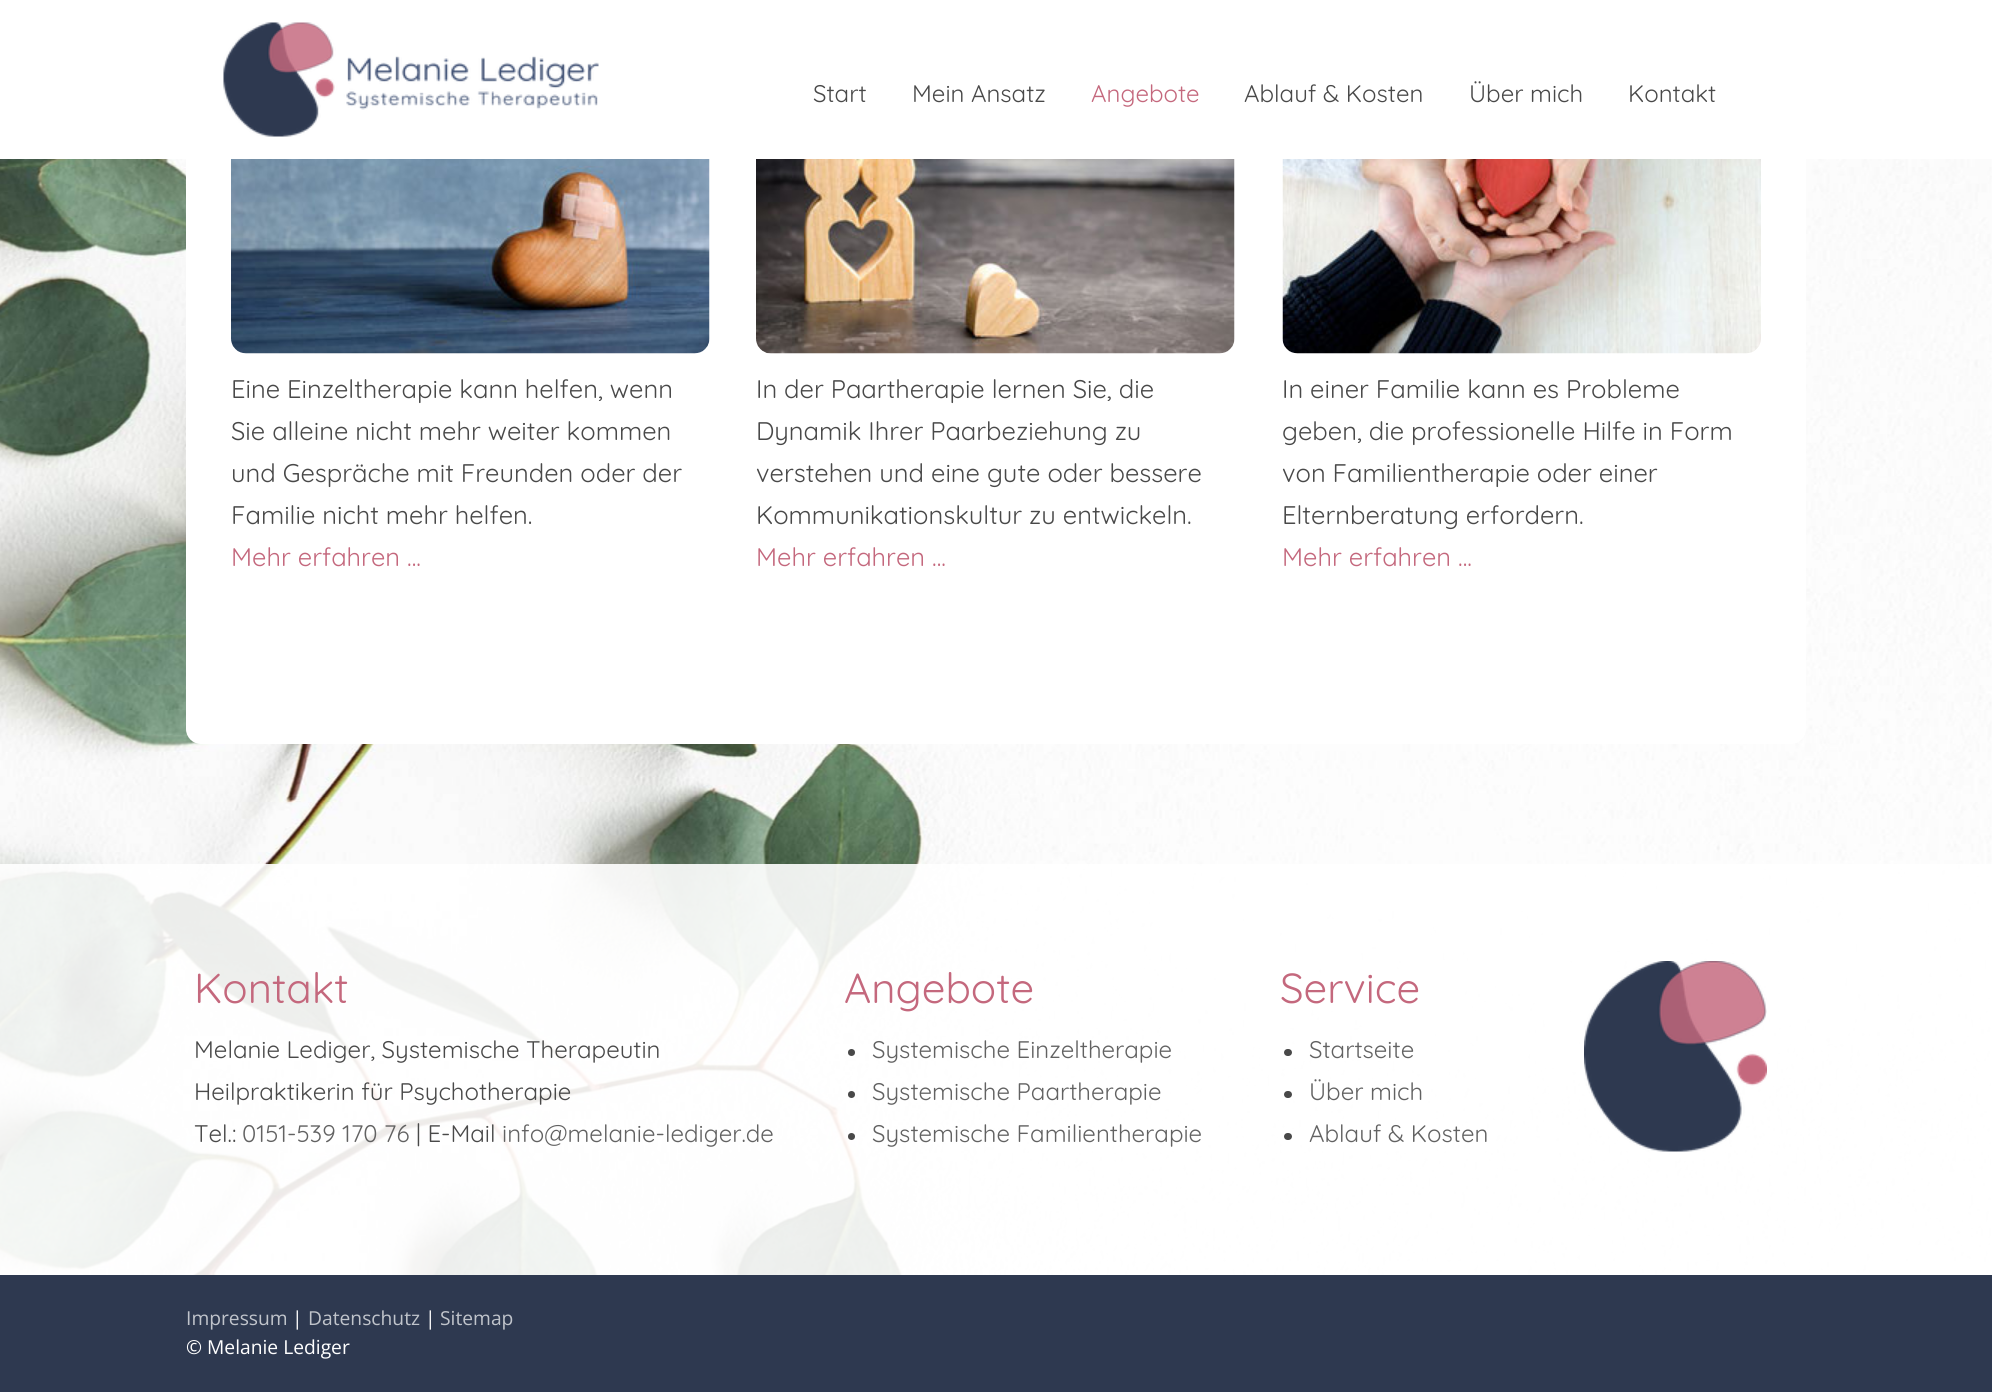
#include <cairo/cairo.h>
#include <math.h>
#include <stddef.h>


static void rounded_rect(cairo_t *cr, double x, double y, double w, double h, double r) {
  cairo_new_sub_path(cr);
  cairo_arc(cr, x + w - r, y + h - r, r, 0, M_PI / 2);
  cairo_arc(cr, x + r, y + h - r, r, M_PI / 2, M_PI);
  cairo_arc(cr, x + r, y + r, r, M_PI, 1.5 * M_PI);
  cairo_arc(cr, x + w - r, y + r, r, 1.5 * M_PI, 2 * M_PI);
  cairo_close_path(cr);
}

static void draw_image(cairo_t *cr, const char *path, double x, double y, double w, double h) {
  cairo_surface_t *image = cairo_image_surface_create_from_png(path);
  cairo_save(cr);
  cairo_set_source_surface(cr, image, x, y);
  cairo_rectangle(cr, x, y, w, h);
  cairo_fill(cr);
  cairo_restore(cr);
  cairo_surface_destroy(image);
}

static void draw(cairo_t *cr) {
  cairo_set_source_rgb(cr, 1, 1, 1);
  cairo_paint(cr);
  draw_image(cr, "images/2.png", 0, 159, 1992, 1116);
  cairo_set_source_rgb(cr, 1, 1, 1);
  rounded_rect(cr, 186, -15, 1620, 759, 15);
  cairo_fill(cr);
  draw_image(cr, "images/1.png", 223, 22, 376, 115);
  draw_image(cr, "images/3.png", 231, 159, 479, 195);
  draw_image(cr, "images/4.png", 756, 159, 479, 195);
  draw_image(cr, "images/5.png", 1282, 159, 479, 195);
  cairo_set_source_rgba(cr, 1, 1, 1, 0.9);
  cairo_rectangle(cr, 0, 864, 1992, 411);
  cairo_fill(cr);
  cairo_set_source_rgb(cr, 73 / 255.0, 73 / 255.0, 73 / 255.0);
  cairo_arc(cr, 851.5, 1052.5, 3.5, 0, 2 * M_PI);
  cairo_fill(cr);
  cairo_arc(cr, 851.5, 1094.5, 3.5, 0, 2 * M_PI);
  cairo_fill(cr);
  cairo_arc(cr, 851.5, 1136.5, 3.5, 0, 2 * M_PI);
  cairo_fill(cr);
  rounded_rect(cr, 1284, 1049, 8, 7, 3.5);
  cairo_fill(cr);
  rounded_rect(cr, 1284, 1091, 8, 7, 3.5);
  cairo_fill(cr);
  rounded_rect(cr, 1284, 1133, 8, 7, 3.5);
  cairo_fill(cr);
  draw_image(cr, "images/6.png", 1584, 961, 183, 191);
  cairo_set_source_rgb(cr, 46 / 255.0, 57 / 255.0, 80 / 255.0);
  cairo_rectangle(cr, 0, 1275, 1992, 117);
  cairo_fill(cr);
  cairo_select_font_face(cr, "Quicksand Light", CAIRO_FONT_SLANT_NORMAL, CAIRO_FONT_WEIGHT_NORMAL);
  cairo_set_font_size(cr, 24);
  cairo_set_source_rgb(cr, 73 / 255.0, 73 / 255.0, 73 / 255.0);
  cairo_move_to(cr, 813, 102);
  cairo_show_text(cr, "Start");
  cairo_move_to(cr, 912, 102);
  cairo_show_text(cr, "Mein Ansatz");
  cairo_set_source_rgb(cr, 196 / 255.0, 104 / 255.0, 125 / 255.0);
  cairo_move_to(cr, 1091, 102);
  cairo_show_text(cr, "Angebote");
  cairo_set_source_rgb(cr, 73 / 255.0, 73 / 255.0, 73 / 255.0);
  cairo_move_to(cr, 1244, 102);
  cairo_show_text(cr, "Ablauf & Kosten");
  cairo_move_to(cr, 1469, 102);
  cairo_show_text(cr, "Über mich");
  cairo_move_to(cr, 1628, 102);
  cairo_show_text(cr, "Kontakt");
  cairo_set_font_size(cr, 25.5);
  cairo_move_to(cr, 231, 398);
  cairo_show_text(cr, "Eine Einzeltherapie kann helfen, wenn");
  cairo_move_to(cr, 231, 440);
  cairo_show_text(cr, "Sie alleine nicht mehr weiter kommen");
  cairo_move_to(cr, 231, 482);
  cairo_show_text(cr, "und Gespräche mit Freunden oder der");
  cairo_move_to(cr, 231, 524);
  cairo_show_text(cr, "Familie nicht mehr helfen.");
  cairo_set_source_rgb(cr, 196 / 255.0, 104 / 255.0, 125 / 255.0);
  cairo_move_to(cr, 231, 566);
  cairo_show_text(cr, "Mehr erfahren ...");
  cairo_set_source_rgb(cr, 73 / 255.0, 73 / 255.0, 73 / 255.0);
  cairo_move_to(cr, 756, 398);
  cairo_show_text(cr, "In der Paartherapie lernen Sie, die");
  cairo_move_to(cr, 756, 440);
  cairo_show_text(cr, "Dynamik Ihrer Paarbeziehung zu");
  cairo_move_to(cr, 756, 482);
  cairo_show_text(cr, "verstehen und eine gute oder bessere");
  cairo_move_to(cr, 756, 524);
  cairo_show_text(cr, "Kommunikationskultur zu entwickeln.");
  cairo_set_source_rgb(cr, 196 / 255.0, 104 / 255.0, 125 / 255.0);
  cairo_move_to(cr, 756, 566);
  cairo_show_text(cr, "Mehr erfahren ...");
  cairo_set_source_rgb(cr, 73 / 255.0, 73 / 255.0, 73 / 255.0);
  cairo_move_to(cr, 1282, 398);
  cairo_show_text(cr, "In einer Familie kann es Probleme");
  cairo_move_to(cr, 1282, 440);
  cairo_show_text(cr, "geben, die professionelle Hilfe in Form");
  cairo_move_to(cr, 1282, 482);
  cairo_show_text(cr, "von Familientherapie oder einer");
  cairo_move_to(cr, 1282, 524);
  cairo_show_text(cr, "Elternberatung erfordern.");
  cairo_set_source_rgb(cr, 196 / 255.0, 104 / 255.0, 125 / 255.0);
  cairo_move_to(cr, 1282, 566);
  cairo_show_text(cr, "Mehr erfahren ...");
  cairo_set_font_size(cr, 42);
  cairo_move_to(cr, 194, 1003);
  cairo_show_text(cr, "Kontakt");
  cairo_set_font_size(cr, 24);
  cairo_set_source_rgb(cr, 73 / 255.0, 73 / 255.0, 73 / 255.0);
  cairo_move_to(cr, 194, 1058);
  cairo_show_text(cr, "Melanie Lediger, Systemische Therapeutin");
  cairo_move_to(cr, 194, 1100);
  cairo_show_text(cr, "Heilpraktikerin für Psychotherapie");
  cairo_move_to(cr, 194, 1142);
  cairo_show_text(cr, "Tel.:");
  cairo_set_source_rgb(cr, 98 / 255.0, 98 / 255.0, 98 / 255.0);
  cairo_move_to(cr, 242, 1142);
  cairo_show_text(cr, "0151-539 170 76");
  cairo_set_source_rgb(cr, 73 / 255.0, 73 / 255.0, 73 / 255.0);
  cairo_move_to(cr, 416, 1142);
  cairo_show_text(cr, "| E-Mail");
  cairo_set_source_rgb(cr, 98 / 255.0, 98 / 255.0, 98 / 255.0);
  cairo_move_to(cr, 502, 1142);
  cairo_show_text(cr, "info@melanie-lediger.de");
  cairo_set_font_size(cr, 42);
  cairo_set_source_rgb(cr, 196 / 255.0, 104 / 255.0, 125 / 255.0);
  cairo_move_to(cr, 844, 1003);
  cairo_show_text(cr, "Angebote");
  cairo_set_font_size(cr, 24);
  cairo_set_source_rgb(cr, 98 / 255.0, 98 / 255.0, 98 / 255.0);
  cairo_move_to(cr, 872, 1058);
  cairo_show_text(cr, "Systemische Einzeltherapie");
  cairo_move_to(cr, 872, 1100);
  cairo_show_text(cr, "Systemische Paartherapie");
  cairo_move_to(cr, 872, 1142);
  cairo_show_text(cr, "Systemische Familientherapie");
  cairo_set_font_size(cr, 42);
  cairo_set_source_rgb(cr, 196 / 255.0, 104 / 255.0, 125 / 255.0);
  cairo_move_to(cr, 1280, 1003);
  cairo_show_text(cr, "Service");
  cairo_set_font_size(cr, 24);
  cairo_set_source_rgb(cr, 98 / 255.0, 98 / 255.0, 98 / 255.0);
  cairo_move_to(cr, 1309, 1058);
  cairo_show_text(cr, "Startseite");
  cairo_move_to(cr, 1309, 1100);
  cairo_show_text(cr, "Über mich");
  cairo_move_to(cr, 1309, 1142);
  cairo_show_text(cr, "Ablauf & Kosten");
  cairo_select_font_face(cr, "Open Sans", CAIRO_FONT_SLANT_NORMAL, CAIRO_FONT_WEIGHT_NORMAL);
  cairo_set_font_size(cr, 19.25);
  cairo_set_source_rgb(cr, 192 / 255.0, 196 / 255.0, 203 / 255.0);
  cairo_move_to(cr, 186, 1325);
  cairo_show_text(cr, "Impressum");
  cairo_set_source_rgb(cr, 1, 1, 1);
  cairo_move_to(cr, 292, 1325);
  cairo_show_text(cr, "|");
  cairo_set_source_rgb(cr, 192 / 255.0, 196 / 255.0, 203 / 255.0);
  cairo_move_to(cr, 308, 1325);
  cairo_show_text(cr, "Datenschutz");
  cairo_set_source_rgb(cr, 1, 1, 1);
  cairo_move_to(cr, 425, 1325);
  cairo_show_text(cr, "|");
  cairo_set_source_rgb(cr, 192 / 255.0, 196 / 255.0, 203 / 255.0);
  cairo_move_to(cr, 440, 1325);
  cairo_show_text(cr, "Sitemap");
  cairo_set_source_rgb(cr, 1, 1, 1);
  cairo_move_to(cr, 186, 1354);
  cairo_show_text(cr, "© Melanie Lediger");
}

int main(void) {
  cairo_surface_t *surface = cairo_image_surface_create(CAIRO_FORMAT_RGB24, 1992, 1392);
  cairo_t *cr = cairo_create(surface);
  cairo_font_options_t *options = cairo_font_options_create();
  cairo_font_options_set_hint_metrics(options, CAIRO_HINT_METRICS_OFF);
  cairo_font_options_set_hint_style(options, CAIRO_HINT_STYLE_NONE);
  cairo_set_font_options(cr, options);
  cairo_set_miter_limit(cr, 4);
  draw(cr);
  cairo_surface_write_to_png(surface, "out.png");
  cairo_font_options_destroy(options);
  cairo_destroy(cr);
  cairo_surface_destroy(surface);
  return 0;
}
